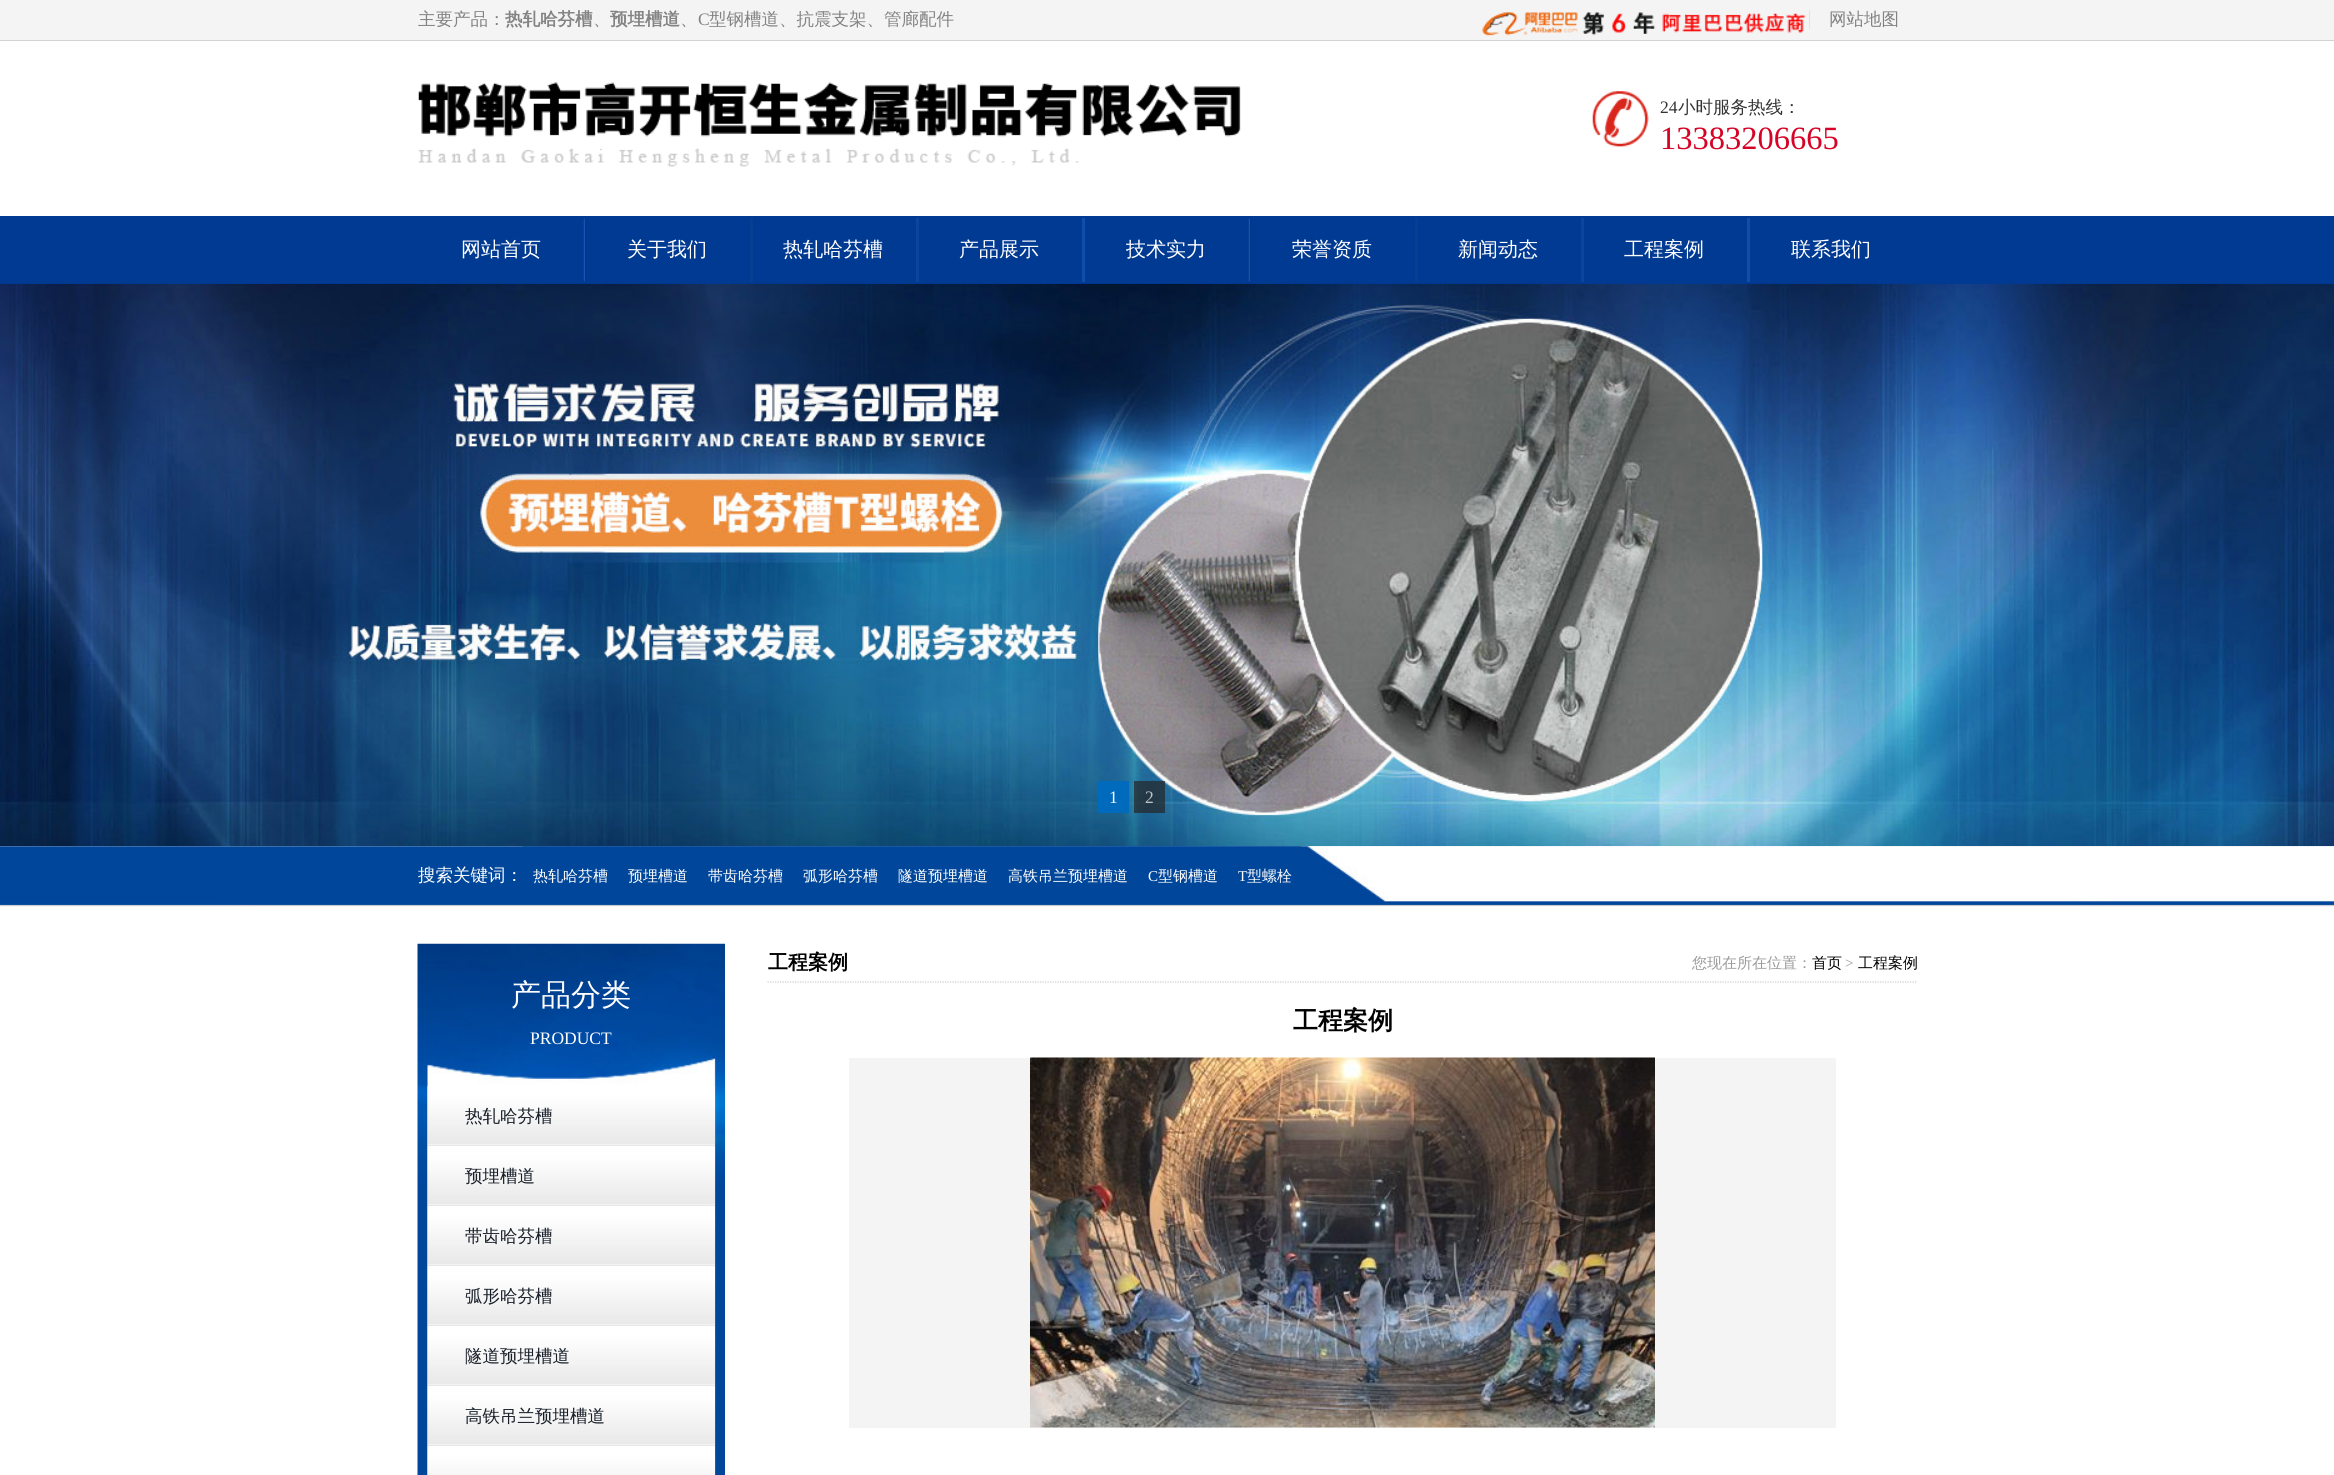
#include <cairo/cairo.h>
#include <math.h>
#include <stddef.h>


static void draw_image(cairo_t *cr, const char *path, double x, double y, double w, double h) {
  cairo_surface_t *image = cairo_image_surface_create_from_png(path);
  cairo_save(cr);
  cairo_set_source_surface(cr, image, x, y);
  cairo_rectangle(cr, x, y, w, h);
  cairo_fill(cr);
  cairo_restore(cr);
  cairo_surface_destroy(image);
}

static void draw(cairo_t *cr) {
  cairo_set_source_rgb(cr, 1, 1, 1);
  cairo_paint(cr);
  cairo_set_source_rgb(cr, 244 / 255.0, 244 / 255.0, 244 / 255.0);
  cairo_rectangle(cr, 0, 0, 2334, 40);
  cairo_fill(cr);
  cairo_set_source_rgb(cr, 212 / 255.0, 211 / 255.0, 211 / 255.0);
  cairo_rectangle(cr, 0, 40, 2334, 1);
  cairo_fill(cr);
  draw_image(cr, "images/1.png", 1482, 11, 324, 25);
  cairo_set_source_rgb(cr, 228 / 255.0, 228 / 255.0, 228 / 255.0);
  cairo_rectangle(cr, 1809, 10, 1, 19);
  cairo_fill(cr);
  draw_image(cr, "images/2.png", 418, 82, 823, 85);
  draw_image(cr, "images/3.png", 1592, 91, 57, 56);
  cairo_set_source_rgb(cr, 0, 58 / 255.0, 146 / 255.0);
  cairo_rectangle(cr, 0, 216, 2334, 68);
  cairo_fill(cr);
  draw_image(cr, "images/4.png", 583, 218, 4, 64);
  cairo_set_source_rgb(cr, 7 / 255.0, 62 / 255.0, 145 / 255.0);
  cairo_rectangle(cr, 750, 218, 3, 64);
  cairo_fill(cr);
  cairo_set_source_rgb(cr, 11 / 255.0, 69 / 255.0, 156 / 255.0);
  cairo_rectangle(cr, 916, 218, 3, 64);
  cairo_fill(cr);
  cairo_set_source_rgb(cr, 17 / 255.0, 78 / 255.0, 170 / 255.0);
  cairo_rectangle(cr, 1082, 218, 3, 64);
  cairo_fill(cr);
  draw_image(cr, "images/4.png", 1248, 218, 4, 64);
  cairo_set_source_rgb(cr, 7 / 255.0, 62 / 255.0, 145 / 255.0);
  cairo_rectangle(cr, 1415, 218, 3, 64);
  cairo_fill(cr);
  cairo_set_source_rgb(cr, 11 / 255.0, 69 / 255.0, 156 / 255.0);
  cairo_rectangle(cr, 1581, 218, 3, 64);
  cairo_fill(cr);
  cairo_set_source_rgb(cr, 17 / 255.0, 78 / 255.0, 170 / 255.0);
  cairo_rectangle(cr, 1747, 218, 3, 64);
  cairo_fill(cr);
  draw_image(cr, "images/6.png", 0, 846, 2334, 61);
  draw_image(cr, "images/7.png", 522, 846, 96, 1);
  draw_image(cr, "images/8.png", 617, 846, 81, 1);
  draw_image(cr, "images/9.png", 697, 846, 96, 1);
  draw_image(cr, "images/9.png", 792, 846, 96, 1);
  draw_image(cr, "images/10.png", 887, 846, 111, 1);
  draw_image(cr, "images/11.png", 997, 846, 141, 1);
  draw_image(cr, "images/12.png", 1137, 846, 91, 1);
  draw_image(cr, "images/13.png", 1227, 846, 75, 1);
  draw_image(cr, "images/5.png", 0, 283, 2334, 564);
  cairo_set_source_rgb(cr, 0, 107 / 255.0, 189 / 255.0);
  cairo_rectangle(cr, 1098, 781, 31, 32);
  cairo_fill(cr);
  cairo_set_source_rgba(cr, 37 / 255.0, 37 / 255.0, 37 / 255.0, 0.7);
  cairo_rectangle(cr, 1134, 781, 31, 32);
  cairo_fill(cr);
  draw_image(cr, "images/14.png", 417, 943, 308, 532);
  draw_image(cr, "images/15.png", 427, 1086, 288, 61);
  draw_image(cr, "images/16.png", 427, 1146, 288, 61);
  draw_image(cr, "images/17.png", 427, 1206, 288, 61);
  draw_image(cr, "images/18.png", 427, 1266, 288, 61);
  draw_image(cr, "images/18.png", 427, 1326, 288, 61);
  draw_image(cr, "images/19.png", 427, 1386, 288, 61);
  draw_image(cr, "images/20.png", 427, 1446, 288, 29);
  cairo_new_path(cr);
  cairo_move_to(cr, 767.5, 982);
  cairo_line_to(cr, 1917.5, 982);
  cairo_set_source_rgb(cr, 204 / 255.0, 204 / 255.0, 204 / 255.0);
  cairo_set_line_width(cr, 1.2);
  cairo_set_dash(cr, (double[]){1.25, 1.25}, 2, 0);
  cairo_stroke(cr);
  cairo_set_source_rgb(cr, 244 / 255.0, 244 / 255.0, 244 / 255.0);
  cairo_rectangle(cr, 849, 1058, 987, 370);
  cairo_fill(cr);
  draw_image(cr, "images/21.png", 1030, 1057, 625, 371);
  cairo_select_font_face(cr, "WenQuanYi Zen Hei Medium", CAIRO_FONT_SLANT_NORMAL, CAIRO_FONT_WEIGHT_NORMAL);
  cairo_set_font_size(cr, 17.5);
  cairo_set_source_rgb(cr, 131 / 255.0, 131 / 255.0, 131 / 255.0);
  cairo_move_to(cr, 418, 25);
  cairo_show_text(cr, "主要产品：");
  cairo_select_font_face(cr, "WenQuanYi Zen Hei", CAIRO_FONT_SLANT_NORMAL, CAIRO_FONT_WEIGHT_BOLD);
  cairo_move_to(cr, 505, 25);
  cairo_show_text(cr, "热轧哈芬槽");
  cairo_select_font_face(cr, "WenQuanYi Zen Hei Medium", CAIRO_FONT_SLANT_NORMAL, CAIRO_FONT_WEIGHT_NORMAL);
  cairo_move_to(cr, 593, 25);
  cairo_show_text(cr, "、");
  cairo_select_font_face(cr, "WenQuanYi Zen Hei", CAIRO_FONT_SLANT_NORMAL, CAIRO_FONT_WEIGHT_BOLD);
  cairo_move_to(cr, 610, 25);
  cairo_show_text(cr, "预埋槽道");
  cairo_select_font_face(cr, "WenQuanYi Zen Hei Medium", CAIRO_FONT_SLANT_NORMAL, CAIRO_FONT_WEIGHT_NORMAL);
  cairo_move_to(cr, 680, 25);
  cairo_show_text(cr, "、");
  cairo_select_font_face(cr, "Liberation Serif", CAIRO_FONT_SLANT_NORMAL, CAIRO_FONT_WEIGHT_NORMAL);
  cairo_move_to(cr, 698, 25);
  cairo_show_text(cr, "C");
  cairo_select_font_face(cr, "WenQuanYi Zen Hei Medium", CAIRO_FONT_SLANT_NORMAL, CAIRO_FONT_WEIGHT_NORMAL);
  cairo_move_to(cr, 709, 25);
  cairo_show_text(cr, "型钢槽道、抗震支架、管廊配件");
  cairo_move_to(cr, 1829, 25);
  cairo_show_text(cr, "网站地图");
  cairo_select_font_face(cr, "Liberation Serif", CAIRO_FONT_SLANT_NORMAL, CAIRO_FONT_WEIGHT_NORMAL);
  cairo_set_source_rgb(cr, 51 / 255.0, 51 / 255.0, 51 / 255.0);
  cairo_move_to(cr, 1660, 113);
  cairo_show_text(cr, "24");
  cairo_select_font_face(cr, "WenQuanYi Zen Hei Medium", CAIRO_FONT_SLANT_NORMAL, CAIRO_FONT_WEIGHT_NORMAL);
  cairo_move_to(cr, 1678, 113);
  cairo_show_text(cr, "小时服务热线：");
  cairo_select_font_face(cr, "Liberation Serif", CAIRO_FONT_SLANT_NORMAL, CAIRO_FONT_WEIGHT_NORMAL);
  cairo_set_font_size(cr, 32.5);
  cairo_set_source_rgb(cr, 215 / 255.0, 3 / 255.0, 38 / 255.0);
  cairo_move_to(cr, 1660, 149);
  cairo_show_text(cr, "13383206665");
  cairo_select_font_face(cr, "WenQuanYi Zen Hei Medium", CAIRO_FONT_SLANT_NORMAL, CAIRO_FONT_WEIGHT_NORMAL);
  cairo_set_font_size(cr, 20);
  cairo_set_source_rgb(cr, 1, 1, 1);
  cairo_move_to(cr, 461, 256);
  cairo_show_text(cr, "网站首页");
  cairo_move_to(cr, 627, 256);
  cairo_show_text(cr, "关于我们");
  cairo_move_to(cr, 783, 256);
  cairo_show_text(cr, "热轧哈芬槽");
  cairo_move_to(cr, 959, 256);
  cairo_show_text(cr, "产品展示");
  cairo_move_to(cr, 1126, 256);
  cairo_show_text(cr, "技术实力");
  cairo_move_to(cr, 1292, 256);
  cairo_show_text(cr, "荣誉资质");
  cairo_move_to(cr, 1458, 256);
  cairo_show_text(cr, "新闻动态");
  cairo_move_to(cr, 1624, 256);
  cairo_show_text(cr, "工程案例");
  cairo_move_to(cr, 1791, 256);
  cairo_show_text(cr, "联系我们");
  cairo_select_font_face(cr, "Liberation Serif", CAIRO_FONT_SLANT_NORMAL, CAIRO_FONT_WEIGHT_NORMAL);
  cairo_set_font_size(cr, 17.5);
  cairo_move_to(cr, 1109, 803);
  cairo_show_text(cr, "1");
  cairo_set_source_rgb(cr, 189 / 255.0, 196 / 255.0, 200 / 255.0);
  cairo_move_to(cr, 1145, 803);
  cairo_show_text(cr, "2");
  cairo_select_font_face(cr, "WenQuanYi Zen Hei Medium", CAIRO_FONT_SLANT_NORMAL, CAIRO_FONT_WEIGHT_NORMAL);
  cairo_set_source_rgb(cr, 1, 1, 1);
  cairo_move_to(cr, 418, 881);
  cairo_show_text(cr, "搜索关键词：");
  cairo_set_font_size(cr, 15);
  cairo_move_to(cr, 533, 881);
  cairo_show_text(cr, "热轧哈芬槽");
  cairo_move_to(cr, 628, 881);
  cairo_show_text(cr, "预埋槽道");
  cairo_move_to(cr, 708, 881);
  cairo_show_text(cr, "带齿哈芬槽");
  cairo_move_to(cr, 803, 881);
  cairo_show_text(cr, "弧形哈芬槽");
  cairo_move_to(cr, 898, 881);
  cairo_show_text(cr, "隧道预埋槽道");
  cairo_move_to(cr, 1008, 881);
  cairo_show_text(cr, "高铁吊兰预埋槽道");
  cairo_select_font_face(cr, "Liberation Serif", CAIRO_FONT_SLANT_NORMAL, CAIRO_FONT_WEIGHT_NORMAL);
  cairo_move_to(cr, 1148, 881);
  cairo_show_text(cr, "C");
  cairo_select_font_face(cr, "WenQuanYi Zen Hei Medium", CAIRO_FONT_SLANT_NORMAL, CAIRO_FONT_WEIGHT_NORMAL);
  cairo_move_to(cr, 1158, 881);
  cairo_show_text(cr, "型钢槽道");
  cairo_select_font_face(cr, "Liberation Serif", CAIRO_FONT_SLANT_NORMAL, CAIRO_FONT_WEIGHT_NORMAL);
  cairo_move_to(cr, 1238, 881);
  cairo_show_text(cr, "T");
  cairo_select_font_face(cr, "WenQuanYi Zen Hei Medium", CAIRO_FONT_SLANT_NORMAL, CAIRO_FONT_WEIGHT_NORMAL);
  cairo_move_to(cr, 1247, 881);
  cairo_show_text(cr, "型螺栓");
  cairo_set_font_size(cr, 30);
  cairo_move_to(cr, 511, 1005);
  cairo_show_text(cr, "产品分类");
  cairo_select_font_face(cr, "Liberation Serif", CAIRO_FONT_SLANT_NORMAL, CAIRO_FONT_WEIGHT_NORMAL);
  cairo_set_font_size(cr, 17.5);
  cairo_move_to(cr, 530, 1044);
  cairo_show_text(cr, "PRODUCT");
  cairo_select_font_face(cr, "WenQuanYi Zen Hei Medium", CAIRO_FONT_SLANT_NORMAL, CAIRO_FONT_WEIGHT_NORMAL);
  cairo_set_source_rgb(cr, 23 / 255.0, 30 / 255.0, 40 / 255.0);
  cairo_move_to(cr, 465, 1122);
  cairo_show_text(cr, "热轧哈芬槽");
  cairo_move_to(cr, 465, 1182);
  cairo_show_text(cr, "预埋槽道");
  cairo_move_to(cr, 465, 1242);
  cairo_show_text(cr, "带齿哈芬槽");
  cairo_move_to(cr, 465, 1302);
  cairo_show_text(cr, "弧形哈芬槽");
  cairo_move_to(cr, 465, 1362);
  cairo_show_text(cr, "隧道预埋槽道");
  cairo_move_to(cr, 465, 1422);
  cairo_show_text(cr, "高铁吊兰预埋槽道");
  cairo_select_font_face(cr, "WenQuanYi Zen Hei", CAIRO_FONT_SLANT_NORMAL, CAIRO_FONT_WEIGHT_BOLD);
  cairo_set_font_size(cr, 20);
  cairo_set_source_rgb(cr, 0, 0, 0);
  cairo_move_to(cr, 768, 969);
  cairo_show_text(cr, "工程案例");
  cairo_select_font_face(cr, "WenQuanYi Zen Hei Medium", CAIRO_FONT_SLANT_NORMAL, CAIRO_FONT_WEIGHT_NORMAL);
  cairo_set_font_size(cr, 15);
  cairo_set_source_rgb(cr, 153 / 255.0, 153 / 255.0, 153 / 255.0);
  cairo_move_to(cr, 1692, 968);
  cairo_show_text(cr, "您现在所在位置：");
  cairo_set_source_rgb(cr, 0, 0, 0);
  cairo_move_to(cr, 1812, 968);
  cairo_show_text(cr, "首页");
  cairo_select_font_face(cr, "Liberation Serif", CAIRO_FONT_SLANT_NORMAL, CAIRO_FONT_WEIGHT_NORMAL);
  cairo_set_source_rgb(cr, 153 / 255.0, 153 / 255.0, 153 / 255.0);
  cairo_move_to(cr, 1845, 968);
  cairo_show_text(cr, ">");
  cairo_select_font_face(cr, "WenQuanYi Zen Hei Medium", CAIRO_FONT_SLANT_NORMAL, CAIRO_FONT_WEIGHT_NORMAL);
  cairo_set_source_rgb(cr, 0, 0, 0);
  cairo_move_to(cr, 1858, 968);
  cairo_show_text(cr, "工程案例");
  cairo_select_font_face(cr, "WenQuanYi Zen Hei", CAIRO_FONT_SLANT_NORMAL, CAIRO_FONT_WEIGHT_BOLD);
  cairo_set_font_size(cr, 25);
  cairo_move_to(cr, 1293, 1029);
  cairo_show_text(cr, "工程案例");
}

int main(void) {
  cairo_surface_t *surface = cairo_image_surface_create(CAIRO_FORMAT_RGB24, 2334, 1475);
  cairo_t *cr = cairo_create(surface);
  cairo_font_options_t *options = cairo_font_options_create();
  cairo_font_options_set_hint_metrics(options, CAIRO_HINT_METRICS_OFF);
  cairo_font_options_set_hint_style(options, CAIRO_HINT_STYLE_NONE);
  cairo_set_font_options(cr, options);
  cairo_set_miter_limit(cr, 4);
  draw(cr);
  cairo_surface_write_to_png(surface, "out.png");
  cairo_font_options_destroy(options);
  cairo_destroy(cr);
  cairo_surface_destroy(surface);
  return 0;
}
